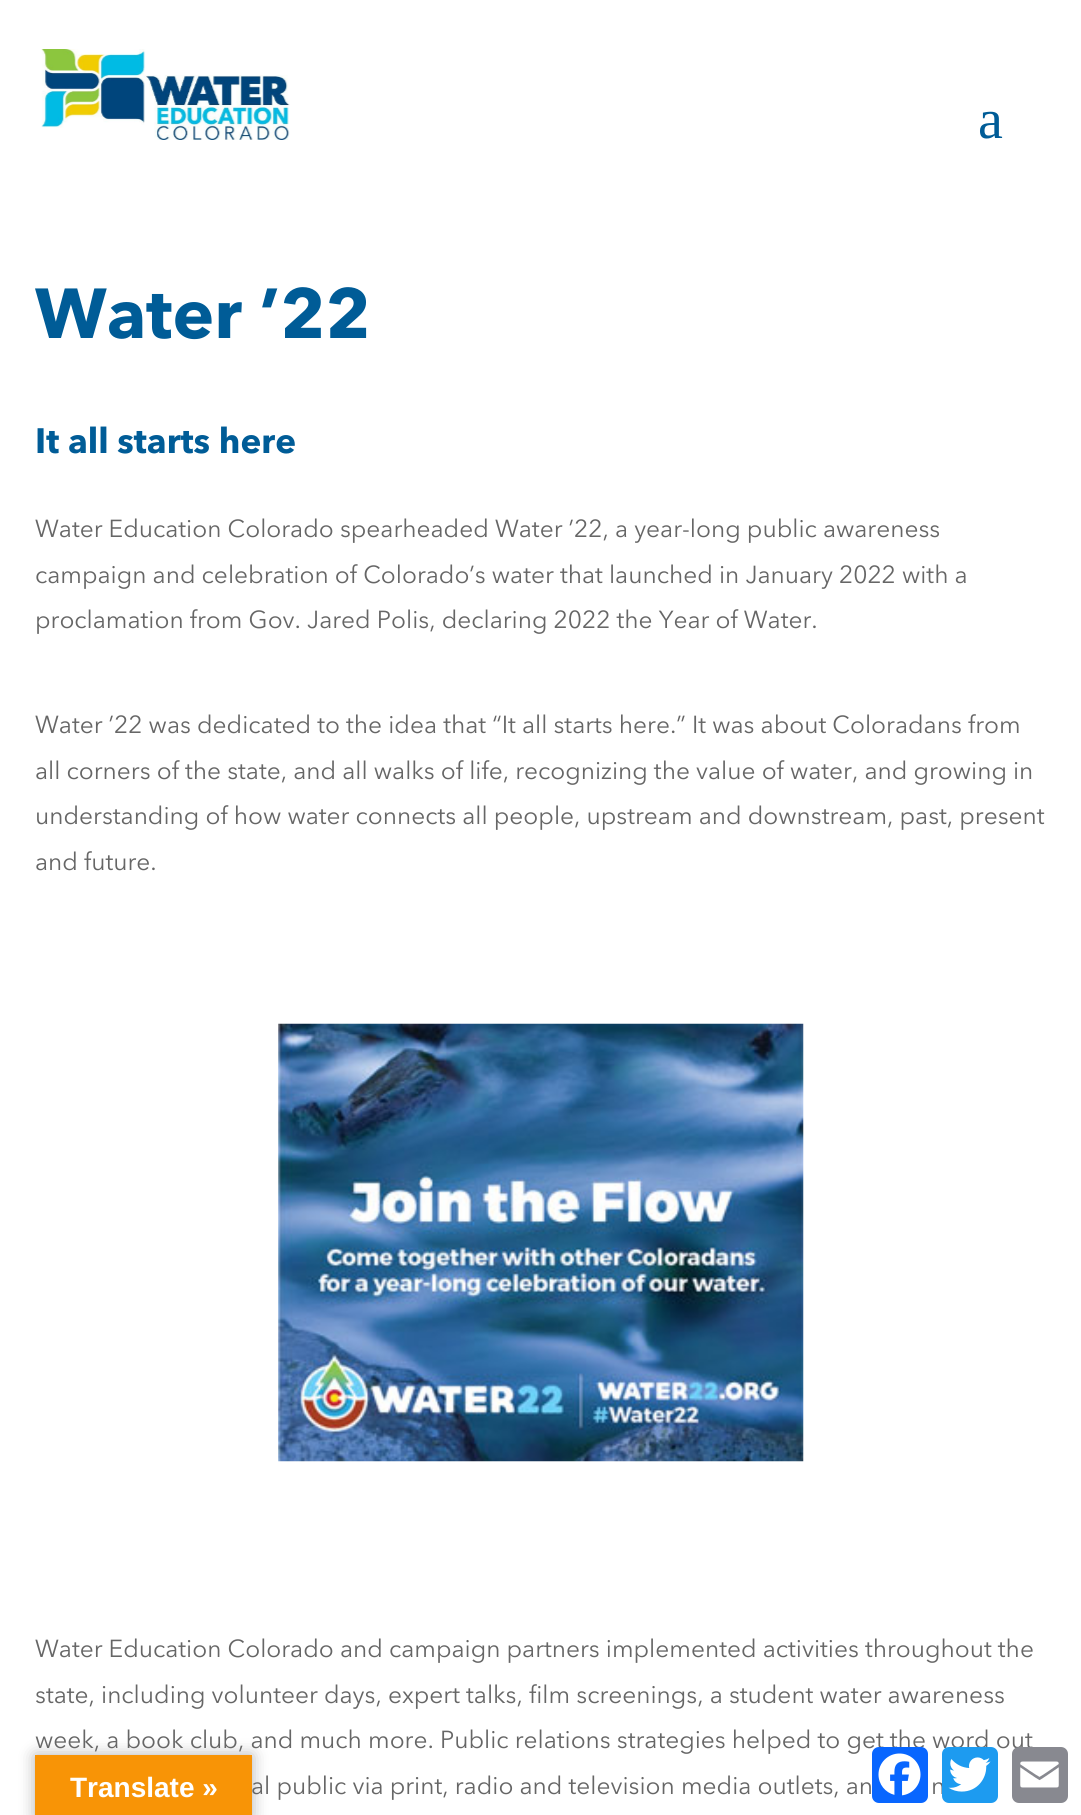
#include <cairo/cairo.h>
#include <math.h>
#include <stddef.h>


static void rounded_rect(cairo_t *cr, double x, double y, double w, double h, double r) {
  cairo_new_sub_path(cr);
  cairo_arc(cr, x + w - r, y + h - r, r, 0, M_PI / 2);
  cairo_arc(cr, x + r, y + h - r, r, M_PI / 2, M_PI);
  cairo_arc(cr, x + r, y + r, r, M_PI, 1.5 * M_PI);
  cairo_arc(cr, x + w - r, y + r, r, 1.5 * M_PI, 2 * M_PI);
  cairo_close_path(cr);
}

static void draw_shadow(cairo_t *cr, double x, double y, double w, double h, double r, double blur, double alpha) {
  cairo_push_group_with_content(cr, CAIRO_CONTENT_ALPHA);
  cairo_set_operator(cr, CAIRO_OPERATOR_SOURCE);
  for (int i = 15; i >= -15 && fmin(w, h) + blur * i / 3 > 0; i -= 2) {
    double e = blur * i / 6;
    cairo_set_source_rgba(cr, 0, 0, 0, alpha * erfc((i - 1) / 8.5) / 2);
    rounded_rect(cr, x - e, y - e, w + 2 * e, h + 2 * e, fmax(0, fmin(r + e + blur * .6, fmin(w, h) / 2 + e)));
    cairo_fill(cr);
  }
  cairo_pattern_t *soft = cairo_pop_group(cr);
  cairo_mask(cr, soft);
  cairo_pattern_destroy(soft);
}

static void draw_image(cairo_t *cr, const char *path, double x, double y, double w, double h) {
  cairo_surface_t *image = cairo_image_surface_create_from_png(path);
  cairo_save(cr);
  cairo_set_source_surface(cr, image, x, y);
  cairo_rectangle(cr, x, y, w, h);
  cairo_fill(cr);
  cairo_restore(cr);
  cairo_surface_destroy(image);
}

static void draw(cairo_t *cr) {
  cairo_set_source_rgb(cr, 1, 1, 1);
  cairo_paint(cr);
  draw_image(cr, "images/1.png", 41, 49, 249, 91);
  draw_image(cr, "images/2.png", 278, 1023, 526, 439);
  cairo_set_source_rgb(cr, 0, 0, 0);
  draw_shadow(cr, 35, 1755, 217, 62, 0, 8, 0.3);
  cairo_set_source_rgb(cr, 248 / 255.0, 148 / 255.0, 6 / 255.0);
  cairo_rectangle(cr, 35, 1755, 217, 60);
  cairo_fill(cr);
  cairo_select_font_face(cr, "Liberation Serif", CAIRO_FONT_SLANT_NORMAL, CAIRO_FONT_WEIGHT_NORMAL);
  cairo_set_font_size(cr, 56);
  cairo_set_source_rgb(cr, 0, 92 / 255.0, 151 / 255.0);
  cairo_move_to(cr, 978, 138);
  cairo_show_text(cr, "a");
  cairo_select_font_face(cr, "Avenir Next", CAIRO_FONT_SLANT_NORMAL, CAIRO_FONT_WEIGHT_BOLD);
  cairo_set_font_size(cr, 70);
  cairo_move_to(cr, 35, 338);
  cairo_show_text(cr, "Water ’22");
  cairo_set_font_size(cr, 35);
  cairo_move_to(cr, 35, 453);
  cairo_show_text(cr, "It all starts here");
  cairo_select_font_face(cr, "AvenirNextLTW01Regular", CAIRO_FONT_SLANT_NORMAL, CAIRO_FONT_WEIGHT_NORMAL);
  cairo_set_font_size(cr, 24.5);
  cairo_set_source_rgb(cr, 102 / 255.0, 102 / 255.0, 102 / 255.0);
  cairo_move_to(cr, 35, 537);
  cairo_show_text(cr, "Water Education Colorado spearheaded Water ’22, a year-long public awareness");
  cairo_move_to(cr, 35, 583);
  cairo_show_text(cr, "campaign and celebration of Colorado’s water that launched in January 2022 with a");
  cairo_move_to(cr, 35, 628);
  cairo_show_text(cr, "proclamation from Gov. Jared Polis, declaring 2022 the Year of Water.");
  cairo_move_to(cr, 35, 733);
  cairo_show_text(cr, "Water ’22 was dedicated to the idea that “It all starts here.” It was about Coloradans from");
  cairo_move_to(cr, 35, 779);
  cairo_show_text(cr, "all corners of the state, and all walks of life, recognizing the value of water, and growing in");
  cairo_move_to(cr, 35, 824);
  cairo_show_text(cr, "understanding of how water connects all people, upstream and downstream, past, present");
  cairo_move_to(cr, 35, 870);
  cairo_show_text(cr, "and future.");
  cairo_move_to(cr, 35, 1657);
  cairo_show_text(cr, "Water Education Colorado and campaign partners implemented activities throughout the");
  cairo_move_to(cr, 35, 1703);
  cairo_show_text(cr, "state, including volunteer days, expert talks, film screenings, a student water awareness");
  cairo_move_to(cr, 35, 1748);
  cairo_show_text(cr, "week, a book club, and much more. Public relations strategies helped to get the word out");
  cairo_move_to(cr, 251, 1794);
  cairo_show_text(cr, "al public via print, radio and television media outlets, an");
  cairo_move_to(cr, 931, 1794);
  cairo_show_text(cr, "n");
  cairo_select_font_face(cr, "Liberation Sans", CAIRO_FONT_SLANT_NORMAL, CAIRO_FONT_WEIGHT_BOLD);
  cairo_set_font_size(cr, 28);
  cairo_set_source_rgb(cr, 1, 1, 1);
  cairo_move_to(cr, 70, 1797);
  cairo_show_text(cr, "Translate »");
  cairo_set_source_rgb(cr, 8 / 255.0, 102 / 255.0, 1);
  rounded_rect(cr, 872, 1747, 56, 56, 7);
  cairo_fill(cr);
  draw_image(cr, "images/3.png", 878, 1753, 43, 43);
  cairo_set_source_rgb(cr, 29 / 255.0, 155 / 255.0, 240 / 255.0);
  rounded_rect(cr, 942, 1747, 56, 56, 7);
  cairo_fill(cr);
  draw_image(cr, "images/4.png", 948, 1757, 43, 35);
  cairo_set_source_rgb(cr, 136 / 255.0, 137 / 255.0, 144 / 255.0);
  rounded_rect(cr, 1012, 1747, 56, 56, 7);
  cairo_fill(cr);
  draw_image(cr, "images/5.png", 1020, 1761, 39, 27);
}

int main(void) {
  cairo_surface_t *surface = cairo_image_surface_create(CAIRO_FORMAT_RGB24, 1081, 1815);
  cairo_t *cr = cairo_create(surface);
  cairo_font_options_t *options = cairo_font_options_create();
  cairo_font_options_set_hint_metrics(options, CAIRO_HINT_METRICS_OFF);
  cairo_font_options_set_hint_style(options, CAIRO_HINT_STYLE_NONE);
  cairo_set_font_options(cr, options);
  cairo_set_miter_limit(cr, 4);
  draw(cr);
  cairo_surface_write_to_png(surface, "out.png");
  cairo_font_options_destroy(options);
  cairo_destroy(cr);
  cairo_surface_destroy(surface);
  return 0;
}
